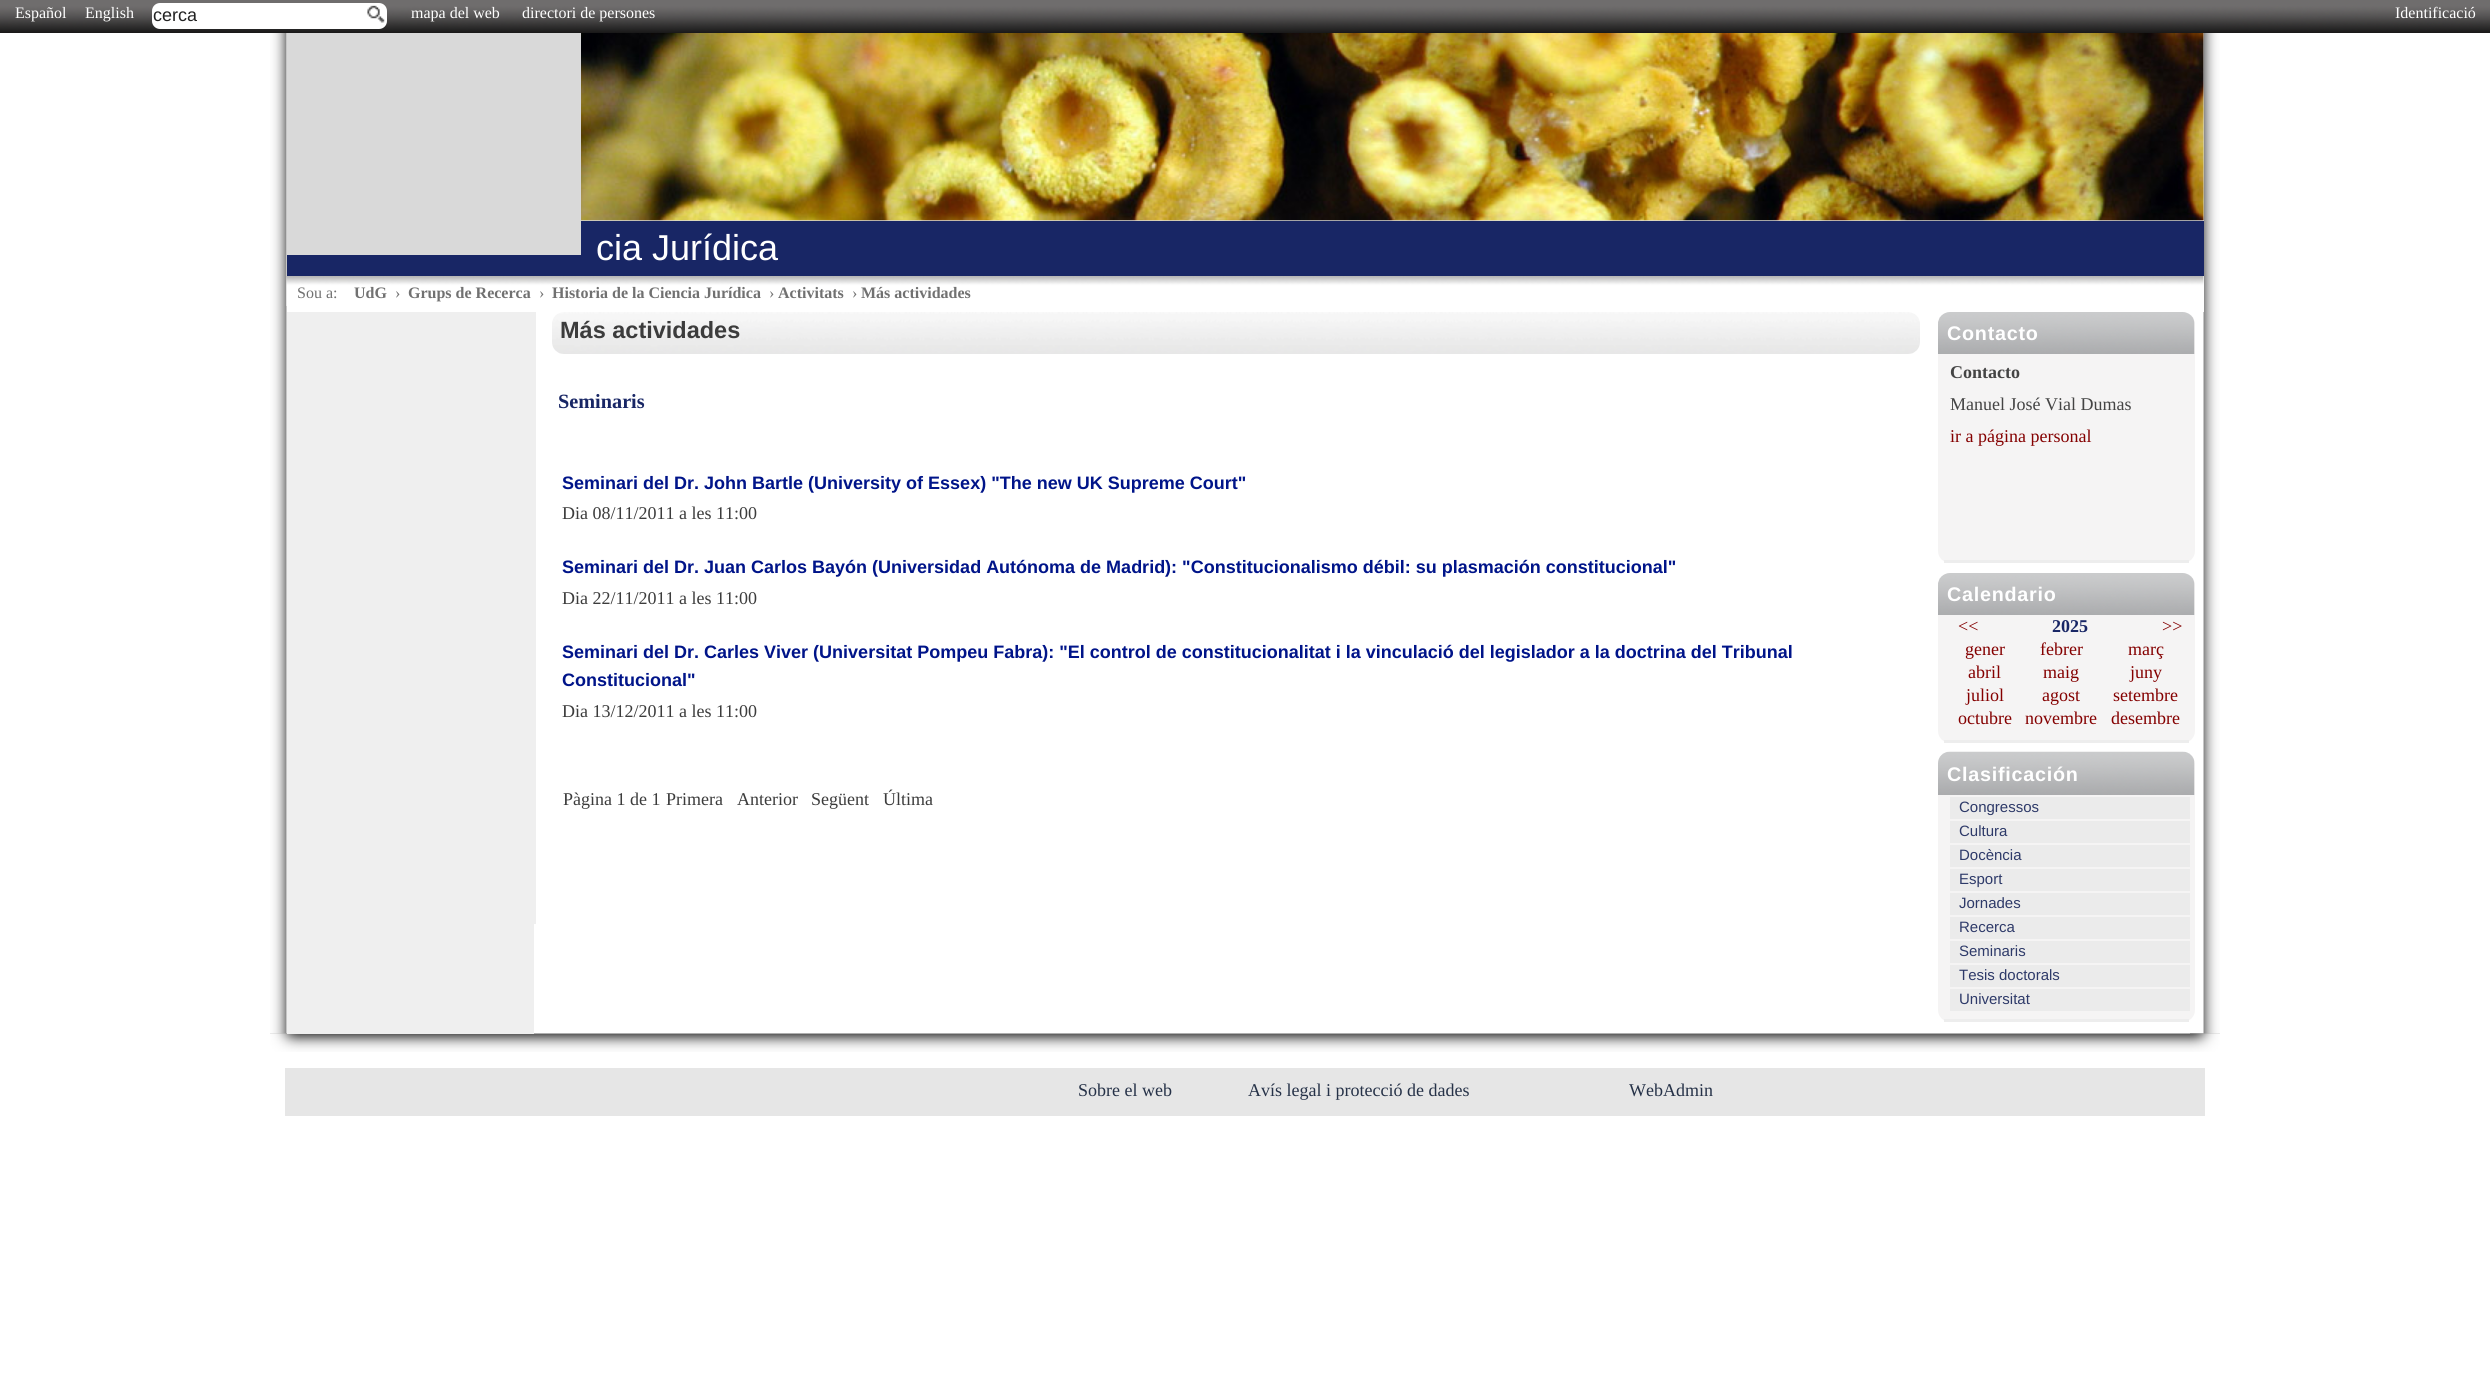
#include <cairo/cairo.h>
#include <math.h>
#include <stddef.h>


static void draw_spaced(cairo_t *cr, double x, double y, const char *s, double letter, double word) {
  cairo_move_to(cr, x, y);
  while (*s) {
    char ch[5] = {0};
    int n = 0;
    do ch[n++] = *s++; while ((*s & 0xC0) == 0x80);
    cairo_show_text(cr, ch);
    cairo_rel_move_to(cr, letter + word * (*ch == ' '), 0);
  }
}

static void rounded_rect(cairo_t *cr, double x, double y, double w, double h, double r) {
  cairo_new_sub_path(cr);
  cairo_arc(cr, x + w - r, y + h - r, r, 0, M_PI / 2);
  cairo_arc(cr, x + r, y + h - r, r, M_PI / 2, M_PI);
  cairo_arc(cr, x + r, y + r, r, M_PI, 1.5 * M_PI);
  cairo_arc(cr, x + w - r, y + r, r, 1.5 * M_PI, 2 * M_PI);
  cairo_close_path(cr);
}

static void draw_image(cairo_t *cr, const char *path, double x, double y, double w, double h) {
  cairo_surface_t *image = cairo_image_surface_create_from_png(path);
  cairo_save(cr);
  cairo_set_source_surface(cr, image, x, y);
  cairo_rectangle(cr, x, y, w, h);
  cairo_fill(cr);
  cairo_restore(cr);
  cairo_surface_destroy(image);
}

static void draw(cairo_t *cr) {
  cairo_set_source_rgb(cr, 1, 1, 1);
  cairo_paint(cr);
  draw_image(cr, "images/1.png", 0, 0, 2490, 33);
  cairo_set_source_rgb(cr, 1, 1, 1);
  rounded_rect(cr, 152, 3, 235, 26, 8);
  cairo_fill(cr);
  draw_image(cr, "images/2.png", 367, 5, 18, 18);
  draw_image(cr, "images/3.png", 270, 1033, 1950, 19);
  draw_image(cr, "images/4.png", 270, 1033, 30, 19);
  draw_image(cr, "images/5.png", 2190, 1033, 30, 19);
  draw_image(cr, "images/6.png", 270, 33, 17, 1001);
  draw_image(cr, "images/7.png", 2203, 33, 17, 1001);
  cairo_set_source_rgb(cr, 24 / 255.0, 38 / 255.0, 101 / 255.0);
  cairo_rectangle(cr, 287, 221, 1917, 55);
  cairo_fill(cr);
  cairo_set_source_rgb(cr, 217 / 255.0, 217 / 255.0, 217 / 255.0);
  cairo_rectangle(cr, 287, 33, 294, 222);
  cairo_fill(cr);
  cairo_rectangle(cr, 581, 33, 1623, 188);
  cairo_fill(cr);
  draw_image(cr, "images/8.png", 581, 33, 1623, 188);
  cairo_set_source_rgb(cr, 1, 1, 1);
  cairo_rectangle(cr, 2203, 276, 1, 36);
  cairo_fill(cr);
  draw_image(cr, "images/9.png", 286, 276, 1918, 30);
  cairo_set_source_rgb(cr, 239 / 255.0, 239 / 255.0, 239 / 255.0);
  cairo_rectangle(cr, 287, 312, 247, 722);
  cairo_fill(cr);
  cairo_rectangle(cr, 534, 312, 2, 612);
  cairo_fill(cr);
  draw_image(cr, "images/10.png", 552, 312, 1368, 42);
  cairo_set_source_rgb(cr, 245 / 255.0, 244 / 255.0, 244 / 255.0);
  rounded_rect(cr, 1938, 312, 257, 251, 12);
  cairo_fill(cr);
  cairo_set_source_rgb(cr, 237 / 255.0, 237 / 255.0, 237 / 255.0);
  cairo_rectangle(cr, 1944, 560, 245, 3);
  cairo_fill(cr);
  draw_image(cr, "images/11.png", 1938, 312, 257, 42);
  cairo_set_source_rgb(cr, 245 / 255.0, 244 / 255.0, 244 / 255.0);
  rounded_rect(cr, 1938, 573, 257, 170, 12);
  cairo_fill(cr);
  cairo_set_source_rgb(cr, 237 / 255.0, 237 / 255.0, 237 / 255.0);
  cairo_rectangle(cr, 1944, 740, 245, 3);
  cairo_fill(cr);
  draw_image(cr, "images/12.png", 1938, 573, 257, 42);
  cairo_set_source_rgb(cr, 245 / 255.0, 244 / 255.0, 244 / 255.0);
  rounded_rect(cr, 1938, 752, 257, 270, 12);
  cairo_fill(cr);
  cairo_set_source_rgb(cr, 237 / 255.0, 237 / 255.0, 237 / 255.0);
  cairo_rectangle(cr, 1944, 1019, 245, 3);
  cairo_fill(cr);
  draw_image(cr, "images/13.png", 1938, 751, 257, 44);
  cairo_set_source_rgb(cr, 235 / 255.0, 235 / 255.0, 235 / 255.0);
  cairo_rectangle(cr, 1950, 797, 240, 22);
  cairo_fill(cr);
  cairo_rectangle(cr, 1950, 821, 240, 22);
  cairo_fill(cr);
  cairo_rectangle(cr, 1950, 845, 240, 22);
  cairo_fill(cr);
  cairo_rectangle(cr, 1950, 869, 240, 22);
  cairo_fill(cr);
  cairo_rectangle(cr, 1950, 893, 240, 22);
  cairo_fill(cr);
  cairo_rectangle(cr, 1950, 917, 240, 22);
  cairo_fill(cr);
  cairo_rectangle(cr, 1950, 941, 240, 22);
  cairo_fill(cr);
  cairo_rectangle(cr, 1950, 965, 240, 22);
  cairo_fill(cr);
  cairo_rectangle(cr, 1950, 989, 240, 22);
  cairo_fill(cr);
  cairo_set_source_rgb(cr, 230 / 255.0, 230 / 255.0, 230 / 255.0);
  cairo_rectangle(cr, 285, 1068, 1920, 48);
  cairo_fill(cr);
  cairo_select_font_face(cr, "Liberation Serif", CAIRO_FONT_SLANT_NORMAL, CAIRO_FONT_WEIGHT_NORMAL);
  cairo_set_font_size(cr, 16);
  cairo_set_source_rgb(cr, 1, 1, 1);
  cairo_move_to(cr, 15, 18);
  cairo_show_text(cr, "Español");
  cairo_move_to(cr, 85, 18);
  cairo_show_text(cr, "English");
  cairo_select_font_face(cr, "Liberation Sans", CAIRO_FONT_SLANT_NORMAL, CAIRO_FONT_WEIGHT_NORMAL);
  cairo_set_font_size(cr, 18);
  cairo_set_source_rgb(cr, 34 / 255.0, 34 / 255.0, 34 / 255.0);
  cairo_move_to(cr, 153, 21);
  cairo_show_text(cr, "cerca");
  cairo_select_font_face(cr, "Liberation Serif", CAIRO_FONT_SLANT_NORMAL, CAIRO_FONT_WEIGHT_NORMAL);
  cairo_set_font_size(cr, 16);
  cairo_set_source_rgb(cr, 1, 1, 1);
  cairo_move_to(cr, 411, 18);
  cairo_show_text(cr, "mapa del web");
  cairo_move_to(cr, 522, 18);
  cairo_show_text(cr, "directori de persones");
  cairo_move_to(cr, 2395, 18);
  cairo_show_text(cr, "Identificació");
  cairo_select_font_face(cr, "Liberation Sans", CAIRO_FONT_SLANT_NORMAL, CAIRO_FONT_WEIGHT_NORMAL);
  cairo_set_font_size(cr, 36);
  cairo_move_to(cr, 596, 260);
  cairo_show_text(cr, "cia Jurídica");
  cairo_select_font_face(cr, "Liberation Serif", CAIRO_FONT_SLANT_NORMAL, CAIRO_FONT_WEIGHT_NORMAL);
  cairo_set_font_size(cr, 16);
  cairo_set_source_rgb(cr, 113 / 255.0, 113 / 255.0, 113 / 255.0);
  cairo_move_to(cr, 297, 298);
  cairo_show_text(cr, "Sou a:");
  cairo_select_font_face(cr, "Liberation Serif", CAIRO_FONT_SLANT_NORMAL, CAIRO_FONT_WEIGHT_BOLD);
  cairo_move_to(cr, 354, 298);
  cairo_show_text(cr, "UdG");
  cairo_select_font_face(cr, "Liberation Serif", CAIRO_FONT_SLANT_NORMAL, CAIRO_FONT_WEIGHT_NORMAL);
  cairo_move_to(cr, 395, 298);
  cairo_show_text(cr, "›");
  cairo_select_font_face(cr, "Liberation Serif", CAIRO_FONT_SLANT_NORMAL, CAIRO_FONT_WEIGHT_BOLD);
  cairo_move_to(cr, 408, 298);
  cairo_show_text(cr, "Grups de Recerca");
  cairo_select_font_face(cr, "Liberation Serif", CAIRO_FONT_SLANT_NORMAL, CAIRO_FONT_WEIGHT_NORMAL);
  cairo_move_to(cr, 539, 298);
  cairo_show_text(cr, "›");
  cairo_select_font_face(cr, "Liberation Serif", CAIRO_FONT_SLANT_NORMAL, CAIRO_FONT_WEIGHT_BOLD);
  cairo_move_to(cr, 552, 298);
  cairo_show_text(cr, "Historia de la Ciencia Jurídica");
  cairo_select_font_face(cr, "Liberation Serif", CAIRO_FONT_SLANT_NORMAL, CAIRO_FONT_WEIGHT_NORMAL);
  cairo_move_to(cr, 769, 298);
  cairo_show_text(cr, "›");
  cairo_select_font_face(cr, "Liberation Serif", CAIRO_FONT_SLANT_NORMAL, CAIRO_FONT_WEIGHT_BOLD);
  cairo_move_to(cr, 778, 298);
  cairo_show_text(cr, "Activitats");
  cairo_select_font_face(cr, "Liberation Serif", CAIRO_FONT_SLANT_NORMAL, CAIRO_FONT_WEIGHT_NORMAL);
  cairo_move_to(cr, 852, 298);
  cairo_show_text(cr, "›");
  cairo_select_font_face(cr, "Liberation Serif", CAIRO_FONT_SLANT_NORMAL, CAIRO_FONT_WEIGHT_BOLD);
  cairo_move_to(cr, 861, 298);
  cairo_show_text(cr, "Más actividades");
  cairo_select_font_face(cr, "Liberation Sans", CAIRO_FONT_SLANT_NORMAL, CAIRO_FONT_WEIGHT_BOLD);
  cairo_set_font_size(cr, 23.5);
  cairo_set_source_rgb(cr, 60 / 255.0, 60 / 255.0, 60 / 255.0);
  cairo_move_to(cr, 560, 338);
  cairo_show_text(cr, "Más actividades");
  cairo_select_font_face(cr, "Liberation Serif", CAIRO_FONT_SLANT_NORMAL, CAIRO_FONT_WEIGHT_BOLD);
  cairo_set_font_size(cr, 20.25);
  cairo_set_source_rgb(cr, 24 / 255.0, 38 / 255.0, 101 / 255.0);
  cairo_move_to(cr, 558, 408);
  cairo_show_text(cr, "Seminaris");
  cairo_select_font_face(cr, "Liberation Sans", CAIRO_FONT_SLANT_NORMAL, CAIRO_FONT_WEIGHT_BOLD);
  cairo_set_font_size(cr, 18);
  cairo_set_source_rgb(cr, 0, 20 / 255.0, 137 / 255.0);
  cairo_move_to(cr, 562, 489);
  cairo_show_text(cr, "Seminari del Dr. John Bartle (University of Essex) \"The new UK Supreme Court\"");
  cairo_select_font_face(cr, "Liberation Serif", CAIRO_FONT_SLANT_NORMAL, CAIRO_FONT_WEIGHT_NORMAL);
  cairo_set_source_rgb(cr, 60 / 255.0, 60 / 255.0, 60 / 255.0);
  cairo_move_to(cr, 562, 519);
  cairo_show_text(cr, "Dia 08/11/2011 a les 11:00");
  cairo_select_font_face(cr, "Liberation Sans", CAIRO_FONT_SLANT_NORMAL, CAIRO_FONT_WEIGHT_BOLD);
  cairo_set_source_rgb(cr, 0, 20 / 255.0, 137 / 255.0);
  cairo_move_to(cr, 562, 573);
  cairo_show_text(cr, "Seminari del Dr. Juan Carlos Bayón (Universidad Autónoma de Madrid): \"Constitucionalismo débil: su plasmación constitucional\"");
  cairo_select_font_face(cr, "Liberation Serif", CAIRO_FONT_SLANT_NORMAL, CAIRO_FONT_WEIGHT_NORMAL);
  cairo_set_source_rgb(cr, 60 / 255.0, 60 / 255.0, 60 / 255.0);
  cairo_move_to(cr, 562, 604);
  cairo_show_text(cr, "Dia 22/11/2011 a les 11:00");
  cairo_select_font_face(cr, "Liberation Sans", CAIRO_FONT_SLANT_NORMAL, CAIRO_FONT_WEIGHT_BOLD);
  cairo_set_source_rgb(cr, 0, 20 / 255.0, 137 / 255.0);
  cairo_move_to(cr, 562, 658);
  cairo_show_text(cr, "Seminari del Dr. Carles Viver (Universitat Pompeu Fabra): \"El control de constitucionalitat i la vinculació del legislador a la doctrina del Tribunal");
  cairo_move_to(cr, 562, 686);
  cairo_show_text(cr, "Constitucional\"");
  cairo_select_font_face(cr, "Liberation Serif", CAIRO_FONT_SLANT_NORMAL, CAIRO_FONT_WEIGHT_NORMAL);
  cairo_set_source_rgb(cr, 60 / 255.0, 60 / 255.0, 60 / 255.0);
  cairo_move_to(cr, 562, 717);
  cairo_show_text(cr, "Dia 13/12/2011 a les 11:00");
  cairo_move_to(cr, 563, 805);
  cairo_show_text(cr, "Pàgina 1 de 1");
  cairo_move_to(cr, 666, 805);
  cairo_show_text(cr, "Primera");
  cairo_move_to(cr, 737, 805);
  cairo_show_text(cr, "Anterior");
  cairo_move_to(cr, 811, 805);
  cairo_show_text(cr, "Següent");
  cairo_move_to(cr, 883, 805);
  cairo_show_text(cr, "Última");
  cairo_select_font_face(cr, "Liberation Sans", CAIRO_FONT_SLANT_NORMAL, CAIRO_FONT_WEIGHT_BOLD);
  cairo_set_font_size(cr, 19.75);
  cairo_set_source_rgb(cr, 1, 1, 1);
  draw_spaced(cr, 1947, 340, "Contacto", 0.75, 0);
  cairo_select_font_face(cr, "Liberation Serif", CAIRO_FONT_SLANT_NORMAL, CAIRO_FONT_WEIGHT_BOLD);
  cairo_set_font_size(cr, 18);
  cairo_set_source_rgb(cr, 68 / 255.0, 68 / 255.0, 68 / 255.0);
  cairo_move_to(cr, 1950, 378);
  cairo_show_text(cr, "Contacto");
  cairo_select_font_face(cr, "Liberation Serif", CAIRO_FONT_SLANT_NORMAL, CAIRO_FONT_WEIGHT_NORMAL);
  cairo_move_to(cr, 1950, 410);
  cairo_show_text(cr, "Manuel José Vial Dumas");
  cairo_set_source_rgb(cr, 132 / 255.0, 0, 0);
  cairo_move_to(cr, 1950, 442);
  cairo_show_text(cr, "ir a página personal");
  cairo_select_font_face(cr, "Liberation Sans", CAIRO_FONT_SLANT_NORMAL, CAIRO_FONT_WEIGHT_BOLD);
  cairo_set_font_size(cr, 19.75);
  cairo_set_source_rgb(cr, 1, 1, 1);
  draw_spaced(cr, 1947, 601, "Calendario", 0.75, 0);
  cairo_select_font_face(cr, "Liberation Serif", CAIRO_FONT_SLANT_NORMAL, CAIRO_FONT_WEIGHT_NORMAL);
  cairo_set_font_size(cr, 18);
  cairo_set_source_rgb(cr, 132 / 255.0, 0, 0);
  cairo_move_to(cr, 1958, 632);
  cairo_show_text(cr, "<<");
  cairo_select_font_face(cr, "Liberation Serif", CAIRO_FONT_SLANT_NORMAL, CAIRO_FONT_WEIGHT_BOLD);
  cairo_set_source_rgb(cr, 24 / 255.0, 38 / 255.0, 101 / 255.0);
  cairo_move_to(cr, 2052, 632);
  cairo_show_text(cr, "2025");
  cairo_select_font_face(cr, "Liberation Serif", CAIRO_FONT_SLANT_NORMAL, CAIRO_FONT_WEIGHT_NORMAL);
  cairo_set_source_rgb(cr, 132 / 255.0, 0, 0);
  cairo_move_to(cr, 2162, 632);
  cairo_show_text(cr, ">>");
  cairo_move_to(cr, 1965, 655);
  cairo_show_text(cr, "gener");
  cairo_move_to(cr, 2040, 655);
  cairo_show_text(cr, "febrer");
  cairo_move_to(cr, 2128, 655);
  cairo_show_text(cr, "març");
  cairo_move_to(cr, 1968, 678);
  cairo_show_text(cr, "abril");
  cairo_move_to(cr, 2043, 678);
  cairo_show_text(cr, "maig");
  cairo_move_to(cr, 2130, 678);
  cairo_show_text(cr, "juny");
  cairo_move_to(cr, 1966, 701);
  cairo_show_text(cr, "juliol");
  cairo_move_to(cr, 2042, 701);
  cairo_show_text(cr, "agost");
  cairo_move_to(cr, 2113, 701);
  cairo_show_text(cr, "setembre");
  cairo_move_to(cr, 1958, 724);
  cairo_show_text(cr, "octubre");
  cairo_move_to(cr, 2025, 724);
  cairo_show_text(cr, "novembre");
  cairo_move_to(cr, 2111, 724);
  cairo_show_text(cr, "desembre");
  cairo_select_font_face(cr, "Liberation Sans", CAIRO_FONT_SLANT_NORMAL, CAIRO_FONT_WEIGHT_BOLD);
  cairo_set_font_size(cr, 19.75);
  cairo_set_source_rgb(cr, 1, 1, 1);
  draw_spaced(cr, 1947, 781, "Clasificación", 0.75, 0);
  cairo_select_font_face(cr, "Liberation Sans", CAIRO_FONT_SLANT_NORMAL, CAIRO_FONT_WEIGHT_NORMAL);
  cairo_set_font_size(cr, 15);
  cairo_set_source_rgb(cr, 46 / 255.0, 58 / 255.0, 105 / 255.0);
  cairo_move_to(cr, 1959, 812);
  cairo_show_text(cr, "Congressos");
  cairo_move_to(cr, 1959, 836);
  cairo_show_text(cr, "Cultura");
  cairo_move_to(cr, 1959, 860);
  cairo_show_text(cr, "Docència");
  cairo_move_to(cr, 1959, 884);
  cairo_show_text(cr, "Esport");
  cairo_move_to(cr, 1959, 908);
  cairo_show_text(cr, "Jornades");
  cairo_move_to(cr, 1959, 932);
  cairo_show_text(cr, "Recerca");
  cairo_move_to(cr, 1959, 956);
  cairo_show_text(cr, "Seminaris");
  cairo_move_to(cr, 1959, 980);
  cairo_show_text(cr, "Tesis doctorals");
  cairo_move_to(cr, 1959, 1004);
  cairo_show_text(cr, "Universitat");
  cairo_select_font_face(cr, "Liberation Serif", CAIRO_FONT_SLANT_NORMAL, CAIRO_FONT_WEIGHT_NORMAL);
  cairo_set_font_size(cr, 18);
  cairo_set_source_rgb(cr, 38 / 255.0, 50 / 255.0, 72 / 255.0);
  cairo_move_to(cr, 1078, 1096);
  cairo_show_text(cr, "Sobre el web");
  cairo_move_to(cr, 1248, 1096);
  cairo_show_text(cr, "Avís legal i protecció de dades");
  cairo_move_to(cr, 1629, 1096);
  cairo_show_text(cr, "WebAdmin");
}

int main(void) {
  cairo_surface_t *surface = cairo_image_surface_create(CAIRO_FORMAT_RGB24, 2490, 1399);
  cairo_t *cr = cairo_create(surface);
  cairo_font_options_t *options = cairo_font_options_create();
  cairo_font_options_set_hint_metrics(options, CAIRO_HINT_METRICS_OFF);
  cairo_font_options_set_hint_style(options, CAIRO_HINT_STYLE_NONE);
  cairo_set_font_options(cr, options);
  cairo_set_miter_limit(cr, 4);
  draw(cr);
  cairo_surface_write_to_png(surface, "out.png");
  cairo_font_options_destroy(options);
  cairo_destroy(cr);
  cairo_surface_destroy(surface);
  return 0;
}
